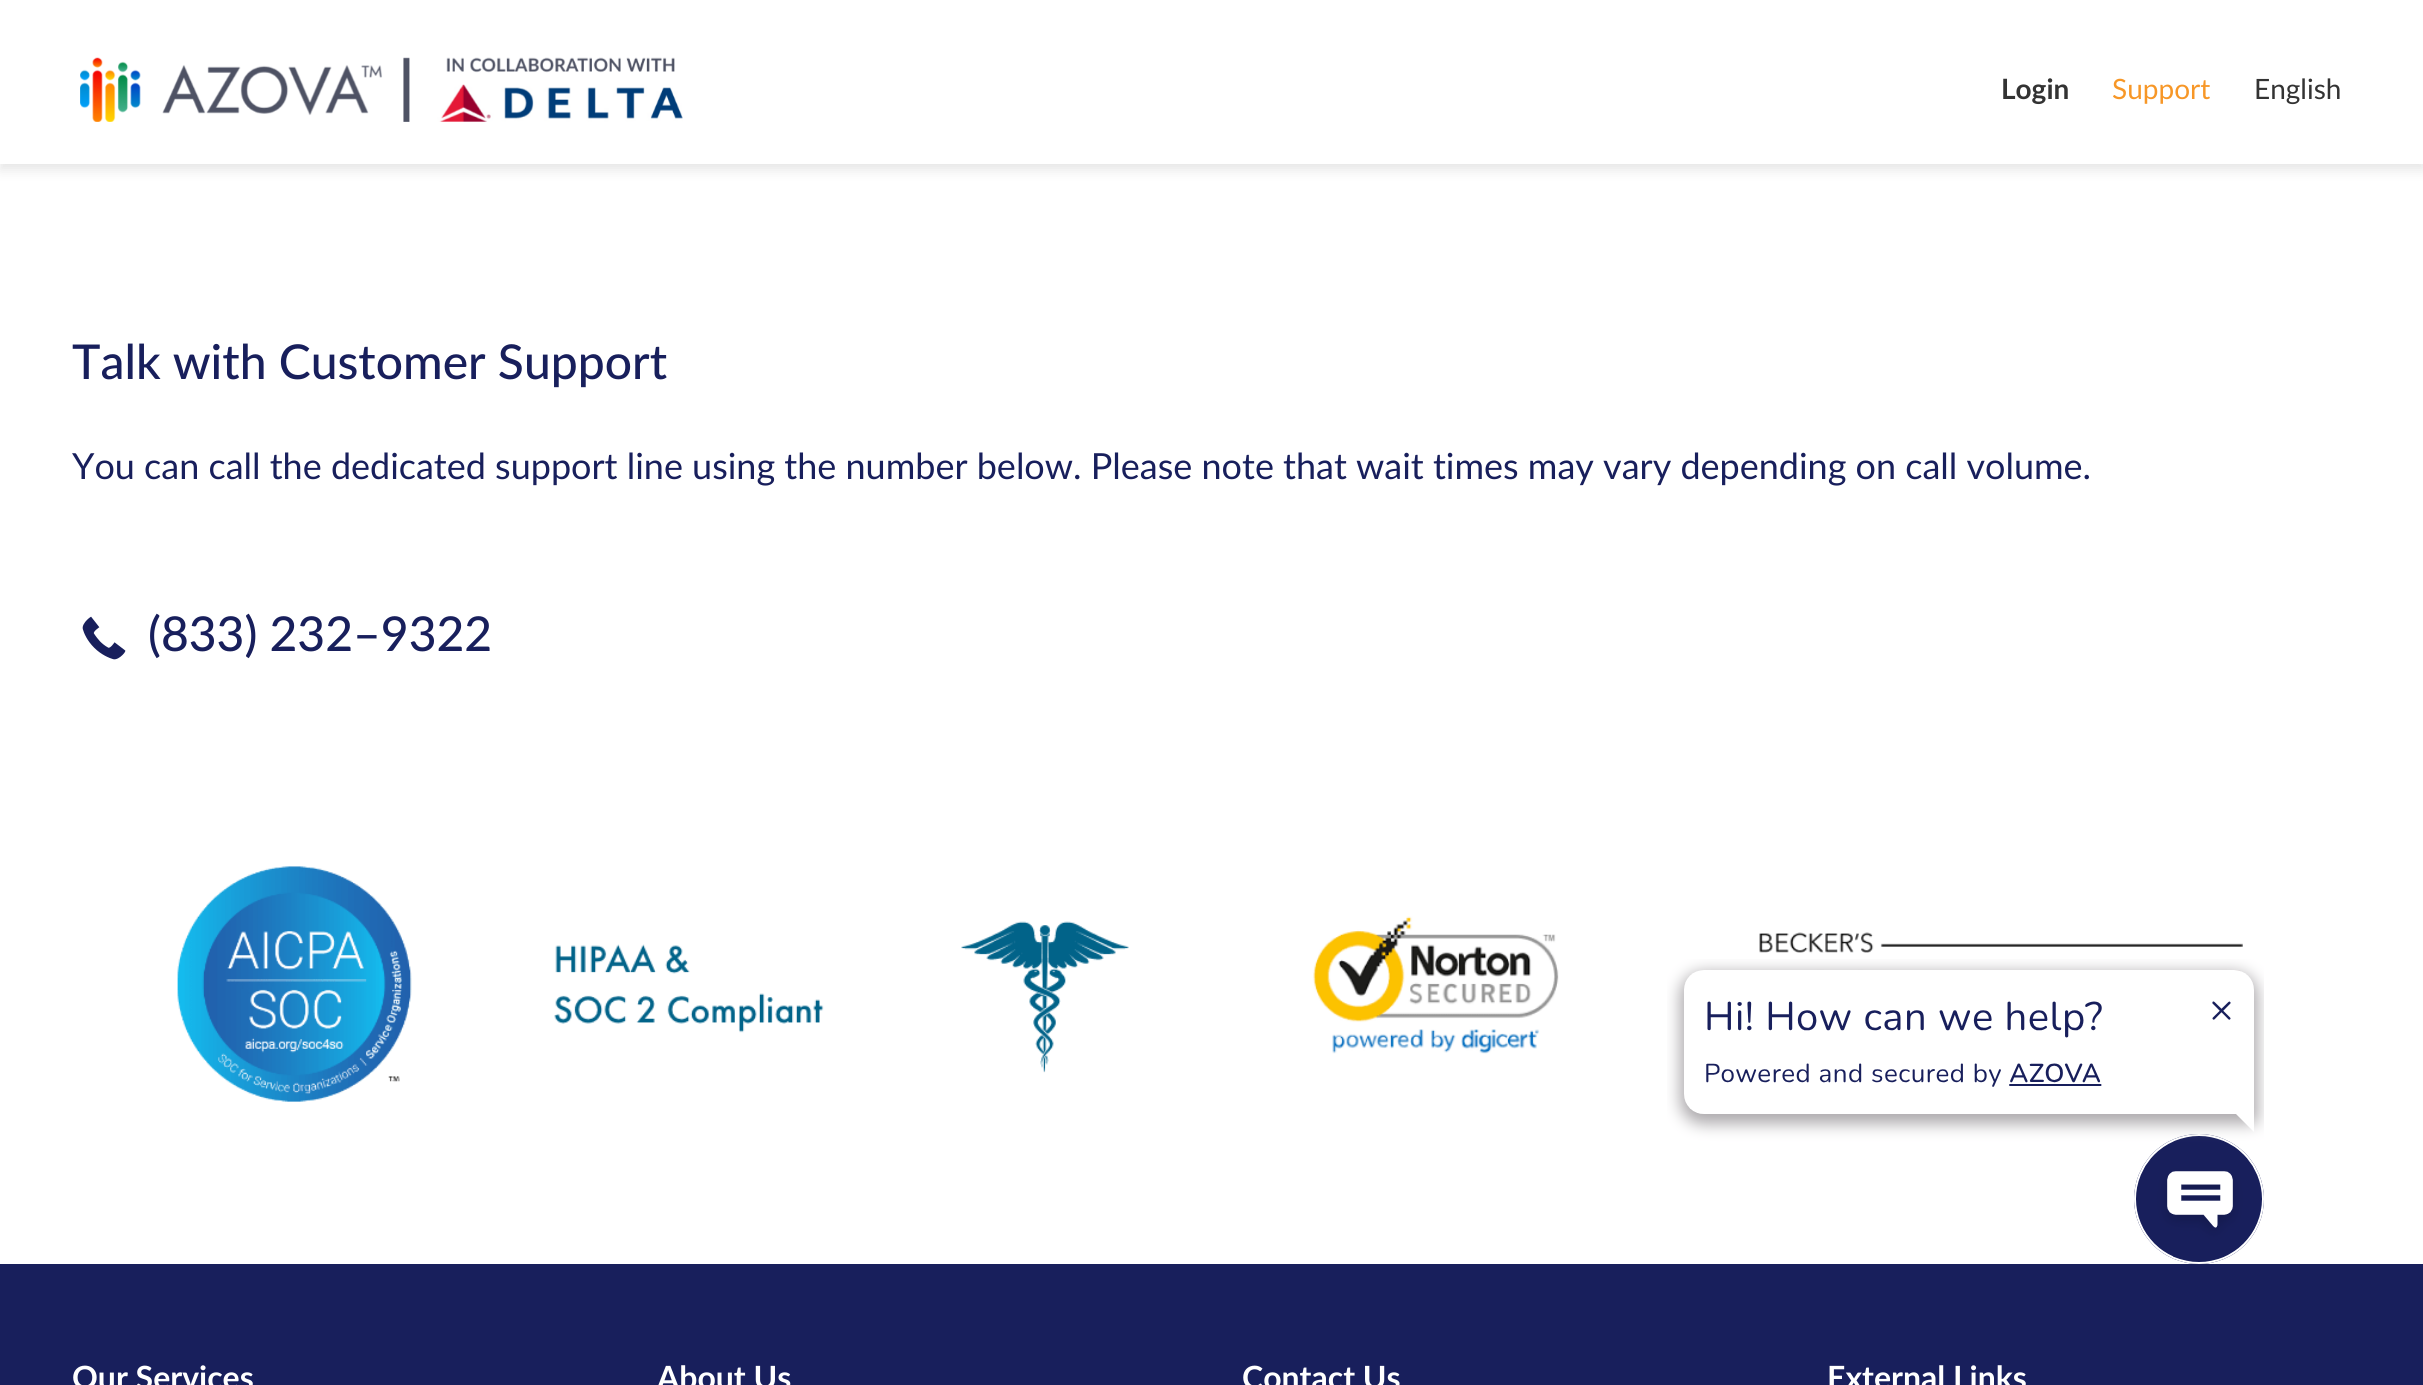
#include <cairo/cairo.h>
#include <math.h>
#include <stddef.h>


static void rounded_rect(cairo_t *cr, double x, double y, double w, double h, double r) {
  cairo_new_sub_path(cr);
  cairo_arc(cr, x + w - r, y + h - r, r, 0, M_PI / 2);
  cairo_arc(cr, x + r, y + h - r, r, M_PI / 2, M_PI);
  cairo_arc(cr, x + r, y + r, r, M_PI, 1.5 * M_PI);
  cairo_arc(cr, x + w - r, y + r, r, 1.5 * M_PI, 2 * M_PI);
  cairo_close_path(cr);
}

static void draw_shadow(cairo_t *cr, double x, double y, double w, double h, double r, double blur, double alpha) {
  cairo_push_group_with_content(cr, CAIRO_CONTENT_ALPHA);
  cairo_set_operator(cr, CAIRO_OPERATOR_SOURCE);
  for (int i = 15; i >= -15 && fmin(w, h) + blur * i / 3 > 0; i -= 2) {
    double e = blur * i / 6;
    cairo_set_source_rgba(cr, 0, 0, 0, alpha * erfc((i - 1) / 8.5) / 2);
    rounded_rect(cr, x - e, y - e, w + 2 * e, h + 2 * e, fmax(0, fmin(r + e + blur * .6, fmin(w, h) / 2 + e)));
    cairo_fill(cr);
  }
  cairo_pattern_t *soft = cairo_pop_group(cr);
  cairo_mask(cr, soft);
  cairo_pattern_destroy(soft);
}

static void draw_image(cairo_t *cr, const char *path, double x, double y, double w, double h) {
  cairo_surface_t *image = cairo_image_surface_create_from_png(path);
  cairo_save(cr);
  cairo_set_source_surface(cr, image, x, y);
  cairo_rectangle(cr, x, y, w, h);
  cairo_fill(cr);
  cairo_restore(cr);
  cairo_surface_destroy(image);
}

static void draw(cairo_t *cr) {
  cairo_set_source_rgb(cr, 1, 1, 1);
  cairo_paint(cr);
  cairo_set_source_rgb(cr, 0, 0, 0);
  draw_shadow(cr, 0, 6, 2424, 164, 0, 6, 0.1);
  cairo_set_source_rgb(cr, 1, 1, 1);
  cairo_rectangle(cr, 0, 0, 2423, 164);
  cairo_fill(cr);
  draw_image(cr, "images/1.png", 80, 57, 603, 65);
  draw_image(cr, "images/2.png", 82, 616, 44, 44);
  draw_image(cr, "images/3.png", 177, 866, 2066, 236);
  draw_image(cr, "images/4.png", 1667, 959, 597, 305);
  cairo_set_source_rgb(cr, 24 / 255.0, 31 / 255.0, 92 / 255.0);
  cairo_rectangle(cr, 0, 1264, 2423, 121);
  cairo_fill(cr);
  cairo_select_font_face(cr, "Lato", CAIRO_FONT_SLANT_NORMAL, CAIRO_FONT_WEIGHT_BOLD);
  cairo_set_font_size(cr, 28);
  cairo_set_source_rgb(cr, 51 / 255.0, 51 / 255.0, 51 / 255.0);
  cairo_move_to(cr, 2001, 99);
  cairo_show_text(cr, "Login");
  cairo_select_font_face(cr, "Lato", CAIRO_FONT_SLANT_NORMAL, CAIRO_FONT_WEIGHT_NORMAL);
  cairo_set_source_rgb(cr, 247 / 255.0, 151 / 255.0, 39 / 255.0);
  cairo_move_to(cr, 2112, 99);
  cairo_show_text(cr, "Support");
  cairo_set_source_rgb(cr, 51 / 255.0, 51 / 255.0, 51 / 255.0);
  cairo_move_to(cr, 2254, 99);
  cairo_show_text(cr, "English");
  cairo_select_font_face(cr, "Lato Medium", CAIRO_FONT_SLANT_NORMAL, CAIRO_FONT_WEIGHT_NORMAL);
  cairo_set_font_size(cr, 48);
  cairo_set_source_rgb(cr, 24 / 255.0, 31 / 255.0, 92 / 255.0);
  cairo_move_to(cr, 72, 379);
  cairo_show_text(cr, "Talk with Customer Support");
  cairo_select_font_face(cr, "Lato", CAIRO_FONT_SLANT_NORMAL, CAIRO_FONT_WEIGHT_NORMAL);
  cairo_set_font_size(cr, 36);
  cairo_move_to(cr, 72, 479);
  cairo_show_text(cr, "You can call the dedicated support line using the number below. Please note that wait times may vary depending on call volume.");
  cairo_select_font_face(cr, "Lato Medium", CAIRO_FONT_SLANT_NORMAL, CAIRO_FONT_WEIGHT_NORMAL);
  cairo_set_font_size(cr, 48);
  cairo_move_to(cr, 148, 651);
  cairo_show_text(cr, "(833) 232–9322");
  cairo_select_font_face(cr, "Lato", CAIRO_FONT_SLANT_NORMAL, CAIRO_FONT_WEIGHT_BOLD);
  cairo_set_font_size(cr, 32);
  cairo_set_source_rgb(cr, 1, 1, 1);
  cairo_move_to(cr, 72, 1389);
  cairo_show_text(cr, "Our Services");
  cairo_move_to(cr, 657, 1389);
  cairo_show_text(cr, "About Us");
  cairo_move_to(cr, 1242, 1389);
  cairo_show_text(cr, "Contact Us");
  cairo_move_to(cr, 1827, 1389);
  cairo_show_text(cr, "External Links");
}

int main(void) {
  cairo_surface_t *surface = cairo_image_surface_create(CAIRO_FORMAT_RGB24, 2423, 1385);
  cairo_t *cr = cairo_create(surface);
  cairo_font_options_t *options = cairo_font_options_create();
  cairo_font_options_set_hint_metrics(options, CAIRO_HINT_METRICS_OFF);
  cairo_font_options_set_hint_style(options, CAIRO_HINT_STYLE_NONE);
  cairo_set_font_options(cr, options);
  cairo_set_miter_limit(cr, 4);
  draw(cr);
  cairo_surface_write_to_png(surface, "out.png");
  cairo_font_options_destroy(options);
  cairo_destroy(cr);
  cairo_surface_destroy(surface);
  return 0;
}
